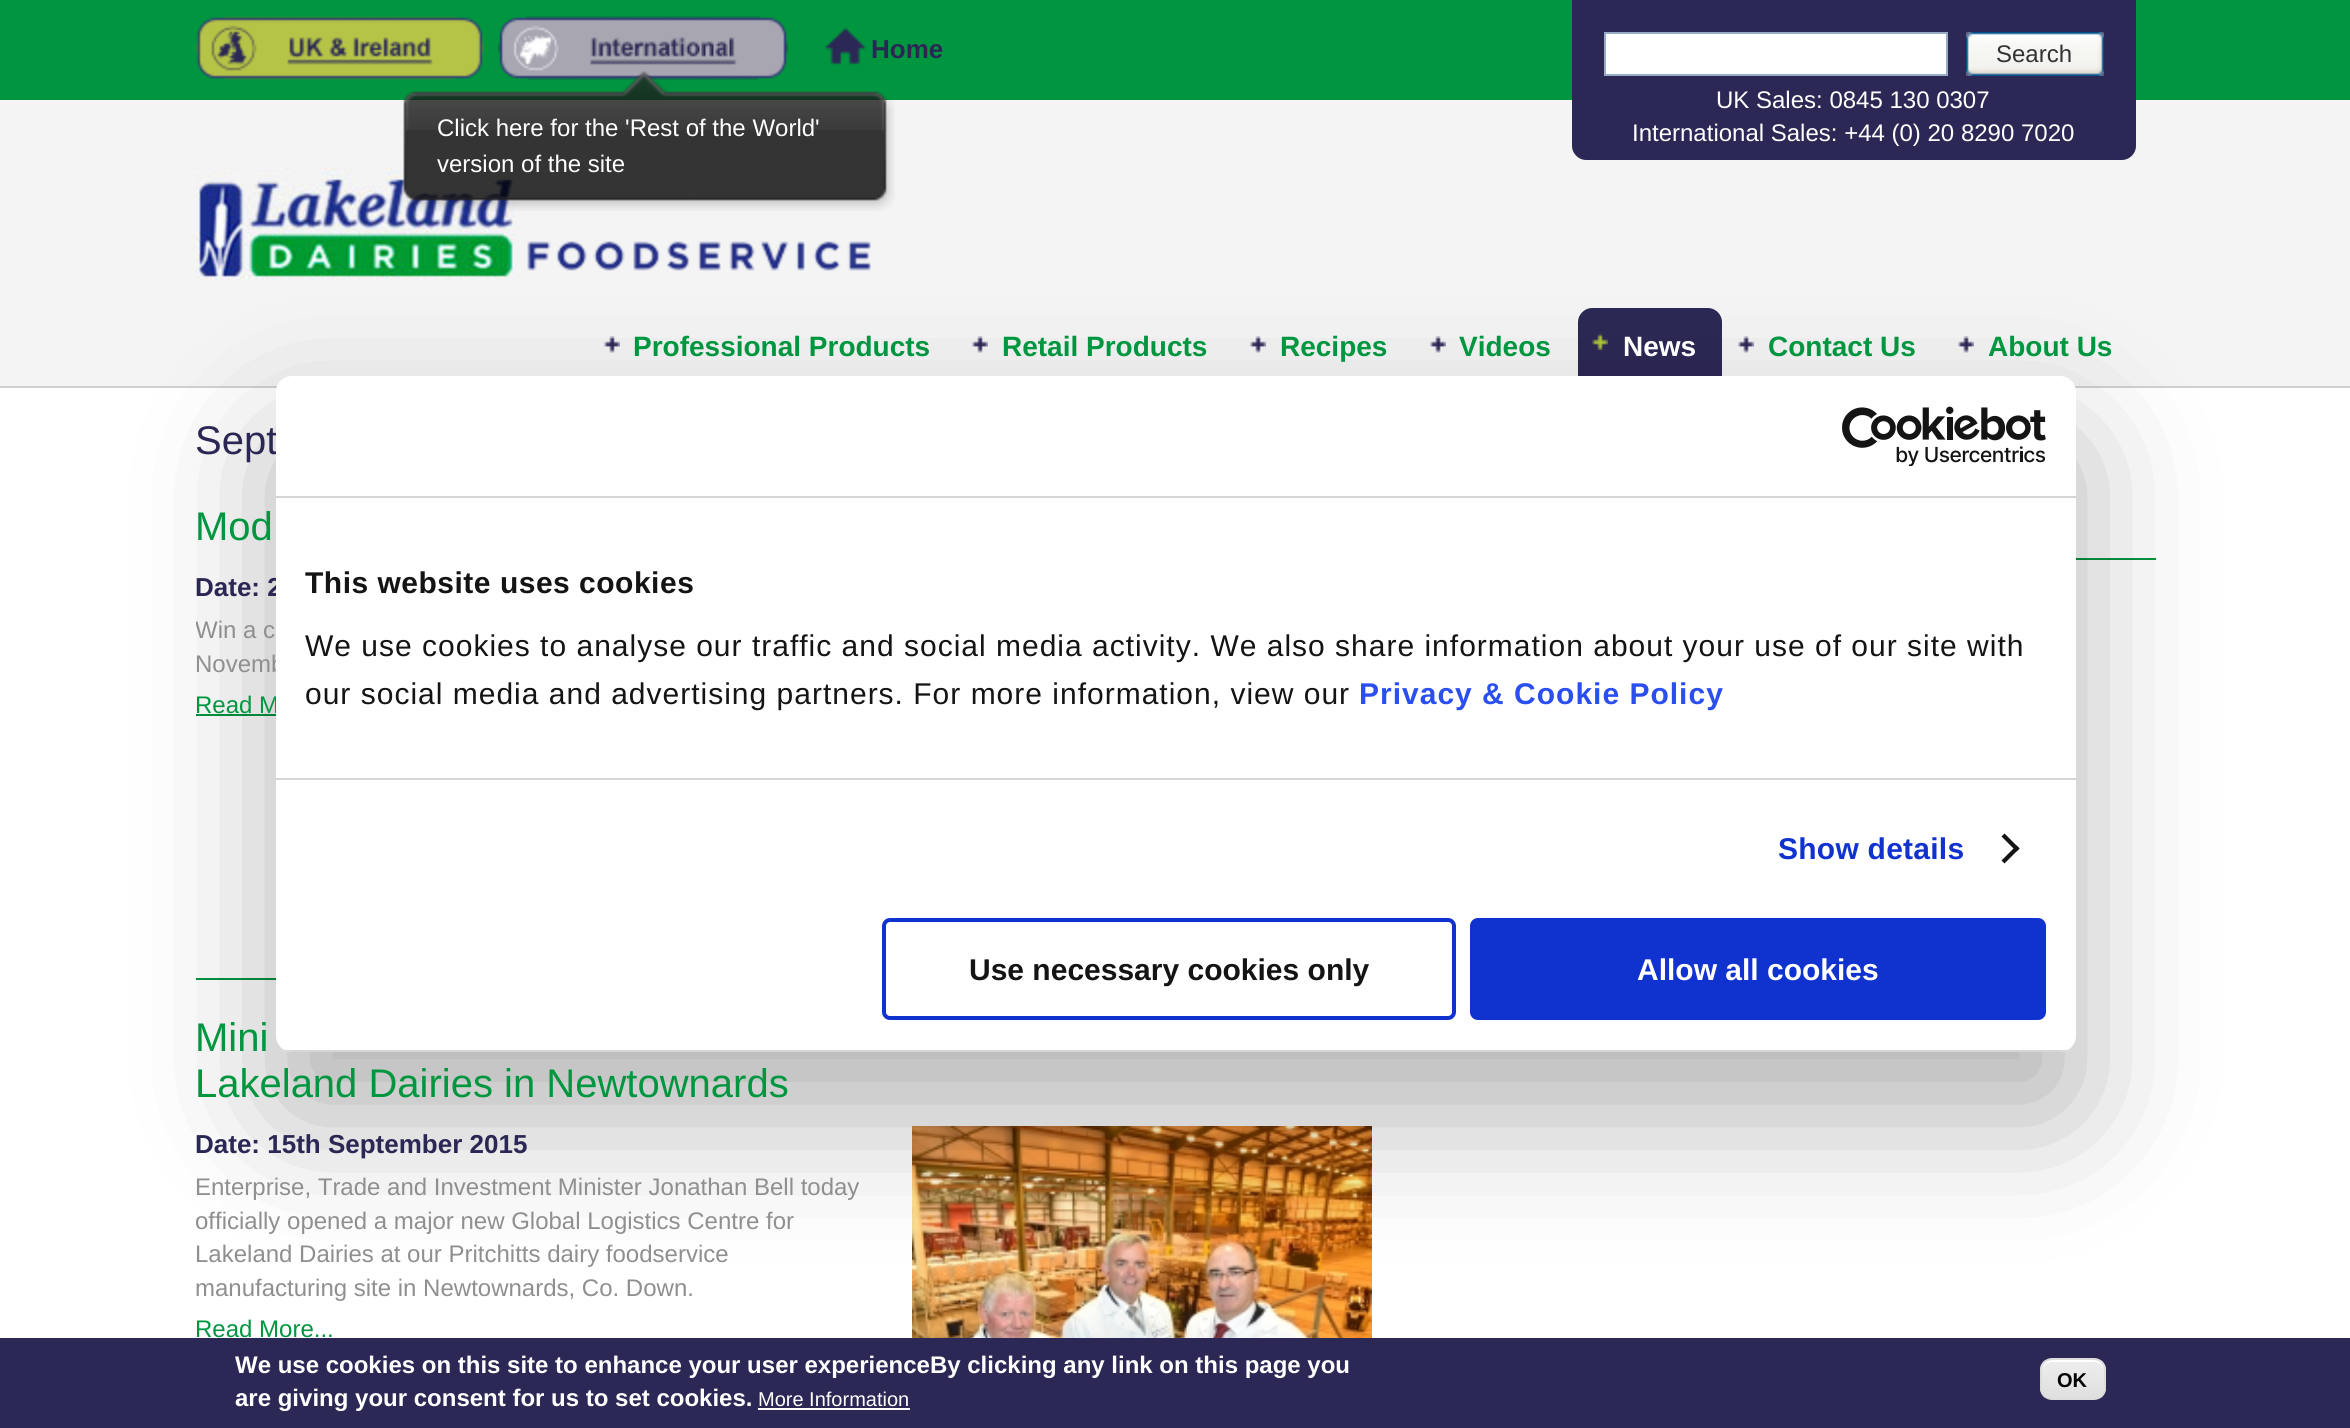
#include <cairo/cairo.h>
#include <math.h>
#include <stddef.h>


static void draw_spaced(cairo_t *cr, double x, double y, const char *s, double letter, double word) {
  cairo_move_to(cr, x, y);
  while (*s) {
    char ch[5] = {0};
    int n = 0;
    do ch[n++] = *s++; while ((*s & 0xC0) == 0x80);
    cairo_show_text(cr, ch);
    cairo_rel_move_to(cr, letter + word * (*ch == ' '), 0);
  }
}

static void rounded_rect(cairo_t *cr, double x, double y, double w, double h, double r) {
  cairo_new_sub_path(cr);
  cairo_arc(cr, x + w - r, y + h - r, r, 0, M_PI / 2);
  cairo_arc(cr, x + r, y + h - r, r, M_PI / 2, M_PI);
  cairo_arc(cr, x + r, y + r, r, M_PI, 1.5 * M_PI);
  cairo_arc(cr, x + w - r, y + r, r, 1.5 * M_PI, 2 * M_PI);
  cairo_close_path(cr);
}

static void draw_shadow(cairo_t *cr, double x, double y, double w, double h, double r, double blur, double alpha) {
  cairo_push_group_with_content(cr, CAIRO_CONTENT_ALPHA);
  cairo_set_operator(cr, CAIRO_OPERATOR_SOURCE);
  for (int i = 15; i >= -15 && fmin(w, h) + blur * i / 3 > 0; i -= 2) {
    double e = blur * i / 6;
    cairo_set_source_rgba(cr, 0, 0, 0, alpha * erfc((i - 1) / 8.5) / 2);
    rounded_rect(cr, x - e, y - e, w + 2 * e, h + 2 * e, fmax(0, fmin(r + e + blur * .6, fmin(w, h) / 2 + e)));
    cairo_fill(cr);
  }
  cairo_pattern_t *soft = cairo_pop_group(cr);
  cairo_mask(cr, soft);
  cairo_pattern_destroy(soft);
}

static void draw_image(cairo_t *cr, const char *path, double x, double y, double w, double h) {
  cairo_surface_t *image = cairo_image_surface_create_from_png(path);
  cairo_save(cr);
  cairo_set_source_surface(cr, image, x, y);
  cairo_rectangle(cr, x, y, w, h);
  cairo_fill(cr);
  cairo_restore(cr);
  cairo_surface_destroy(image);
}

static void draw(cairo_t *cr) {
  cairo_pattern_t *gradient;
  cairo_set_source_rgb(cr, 1, 1, 1);
  cairo_paint(cr);
  cairo_set_source_rgb(cr, 0, 150 / 255.0, 64 / 255.0);
  cairo_rectangle(cr, 0, 0, 2350, 100);
  cairo_fill(cr);
  draw_image(cr, "images/1.png", 824, 27, 43, 38);
  draw_image(cr, "images/2.png", 196, 16, 288, 64);
  draw_image(cr, "images/3.png", 498, 16, 290, 64);
  cairo_set_source_rgb(cr, 244 / 255.0, 244 / 255.0, 244 / 255.0);
  cairo_rectangle(cr, 0, 100, 2350, 286);
  cairo_fill(cr);
  draw_image(cr, "images/6.png", 196, 168, 318, 113);
  draw_image(cr, "images/4.png", 403, 71, 492, 140);
  cairo_set_source_rgb(cr, 44 / 255.0, 40 / 255.0, 85 / 255.0);
  cairo_new_path(cr);
  cairo_move_to(cr, 1572, 0);
  cairo_line_to(cr, 2136, 0);
  cairo_line_to(cr, 2136, 146);
  cairo_curve_to(cr, 2136, 153.5, 2129.5, 160, 2122, 160);
  cairo_line_to(cr, 1586, 160);
  cairo_curve_to(cr, 1578.5, 160, 1572, 153.5, 1572, 146);
  cairo_close_path(cr);
  cairo_fill(cr);
  cairo_set_source_rgb(cr, 1, 1, 1);
  cairo_rectangle(cr, 1605, 33, 342, 42);
  cairo_fill_preserve(cr);
  cairo_set_source_rgb(cr, 151 / 255.0, 171 / 255.0, 195 / 255.0);
  cairo_stroke(cr);
  draw_image(cr, "images/5.png", 1966, 32, 138, 44);
  cairo_set_source_rgb(cr, 208 / 255.0, 208 / 255.0, 208 / 255.0);
  cairo_rectangle(cr, 0, 386, 2350, 2);
  cairo_fill(cr);
  draw_image(cr, "images/7.png", 527, 241, 344, 30);
  draw_image(cr, "images/8.png", 604, 336, 16, 17);
  draw_image(cr, "images/8.png", 972, 336, 16, 17);
  draw_image(cr, "images/8.png", 1250, 336, 16, 17);
  draw_image(cr, "images/8.png", 1430, 336, 16, 17);
  cairo_set_source_rgb(cr, 44 / 255.0, 40 / 255.0, 85 / 255.0);
  cairo_new_path(cr);
  cairo_move_to(cr, 1592, 308);
  cairo_line_to(cr, 1708, 308);
  cairo_curve_to(cr, 1715.5, 308, 1722, 314.5, 1722, 322);
  cairo_line_to(cr, 1722, 390);
  cairo_line_to(cr, 1578, 390);
  cairo_line_to(cr, 1578, 322);
  cairo_curve_to(cr, 1578, 314.5, 1584.5, 308, 1592, 308);
  cairo_close_path(cr);
  cairo_fill(cr);
  draw_image(cr, "images/9.png", 1592, 333, 16, 17);
  draw_image(cr, "images/8.png", 1738, 336, 16, 17);
  draw_image(cr, "images/8.png", 1958, 336, 16, 17);
  cairo_set_source_rgb(cr, 0, 150 / 255.0, 64 / 255.0);
  cairo_rectangle(cr, 196, 978, 80, 2);
  cairo_fill(cr);
  cairo_rectangle(cr, 196, 714, 80, 2);
  cairo_fill(cr);
  draw_image(cr, "images/10.png", 912, 1126, 460, 212);
  cairo_rectangle(cr, 2076, 558, 80, 2);
  cairo_fill(cr);
  cairo_set_source_rgb(cr, 0, 0, 0);
  draw_shadow(cr, 276, 440, 1800, 676, 16, 68, 0.3);
  cairo_set_source_rgb(cr, 44 / 255.0, 40 / 255.0, 85 / 255.0);
  cairo_rectangle(cr, 0, 1338, 2350, 90);
  cairo_fill(cr);
  cairo_set_source_rgb(cr, 1, 1, 1);
  cairo_rectangle(cr, 758, 1408, 152, 2);
  cairo_fill(cr);
  cairo_save(cr);
  rounded_rect(cr, 2040, 1358, 66, 42, 12);
  cairo_clip(cr);
  gradient = cairo_pattern_create_linear(2073, 1360, 2073, 1398);
  cairo_pattern_add_color_stop_rgba(gradient, 0.05, 237 / 255.0, 237 / 255.0, 237 / 255.0, 1);
  cairo_pattern_add_color_stop_rgba(gradient, 1, 223 / 255.0, 223 / 255.0, 223 / 255.0, 1);
  cairo_set_source(cr, gradient);
  cairo_pattern_destroy(gradient);
  cairo_rectangle(cr, 2040, 1360, 66, 38);
  cairo_fill(cr);
  cairo_restore(cr);
  cairo_new_path(cr);
  cairo_move_to(cr, 2052, 1362);
  cairo_line_to(cr, 2094, 1362);
  cairo_curve_to(cr, 2100, 1362, 2104, 1366, 2104, 1372);
  cairo_curve_to(cr, 2104, 1360, 2097, 1360, 2087, 1360);
  cairo_line_to(cr, 2059, 1360);
  cairo_curve_to(cr, 2049, 1360, 2042, 1360, 2042, 1372);
  cairo_curve_to(cr, 2042, 1366, 2046, 1362, 2052, 1362);
  cairo_close_path(cr);
  cairo_fill(cr);
  rounded_rect(cr, 2041, 1359, 64, 40, 11);
  cairo_set_source_rgb(cr, 220 / 255.0, 220 / 255.0, 220 / 255.0);
  cairo_stroke(cr);
  cairo_select_font_face(cr, "Liberation Sans", CAIRO_FONT_SLANT_NORMAL, CAIRO_FONT_WEIGHT_BOLD);
  cairo_set_font_size(cr, 26);
  cairo_set_source_rgb(cr, 43 / 255.0, 39 / 255.0, 84 / 255.0);
  cairo_move_to(cr, 871, 58);
  cairo_show_text(cr, "Home");
  cairo_select_font_face(cr, "Liberation Sans", CAIRO_FONT_SLANT_NORMAL, CAIRO_FONT_WEIGHT_NORMAL);
  cairo_set_font_size(cr, 24);
  cairo_set_source_rgb(cr, 1, 1, 1);
  cairo_move_to(cr, 437, 136);
  cairo_show_text(cr, "Click here for the 'Rest of the World'");
  cairo_move_to(cr, 437, 172);
  cairo_show_text(cr, "version of the site");
  cairo_set_source_rgb(cr, 51 / 255.0, 51 / 255.0, 51 / 255.0);
  cairo_move_to(cr, 1996, 62);
  cairo_show_text(cr, "Search");
  cairo_set_source_rgb(cr, 1, 1, 1);
  cairo_move_to(cr, 1716, 108);
  cairo_show_text(cr, "UK Sales: 0845 130 0307");
  cairo_move_to(cr, 1632, 141);
  cairo_show_text(cr, "International Sales: +44 (0) 20 8290 7020");
  cairo_select_font_face(cr, "Liberation Sans", CAIRO_FONT_SLANT_NORMAL, CAIRO_FONT_WEIGHT_BOLD);
  cairo_set_font_size(cr, 28);
  cairo_set_source_rgb(cr, 0, 150 / 255.0, 64 / 255.0);
  cairo_move_to(cr, 633, 356);
  cairo_show_text(cr, "Professional Products");
  cairo_move_to(cr, 1002, 356);
  cairo_show_text(cr, "Retail Products");
  cairo_move_to(cr, 1280, 356);
  cairo_show_text(cr, "Recipes");
  cairo_move_to(cr, 1459, 356);
  cairo_show_text(cr, "Videos");
  cairo_set_source_rgb(cr, 1, 1, 1);
  cairo_move_to(cr, 1623, 356);
  cairo_show_text(cr, "News");
  cairo_set_source_rgb(cr, 0, 150 / 255.0, 64 / 255.0);
  cairo_move_to(cr, 1768, 356);
  cairo_show_text(cr, "Contact Us");
  cairo_move_to(cr, 1988, 356);
  cairo_show_text(cr, "About Us");
  cairo_select_font_face(cr, "Liberation Sans", CAIRO_FONT_SLANT_NORMAL, CAIRO_FONT_WEIGHT_NORMAL);
  cairo_set_font_size(cr, 40);
  cairo_set_source_rgb(cr, 43 / 255.0, 39 / 255.0, 84 / 255.0);
  cairo_move_to(cr, 195, 454);
  cairo_show_text(cr, "Sept");
  cairo_set_source_rgb(cr, 0, 150 / 255.0, 64 / 255.0);
  cairo_move_to(cr, 195, 540);
  cairo_show_text(cr, "Mod");
  cairo_select_font_face(cr, "Liberation Sans", CAIRO_FONT_SLANT_NORMAL, CAIRO_FONT_WEIGHT_BOLD);
  cairo_set_font_size(cr, 26);
  cairo_set_source_rgb(cr, 43 / 255.0, 39 / 255.0, 84 / 255.0);
  cairo_move_to(cr, 195, 596);
  cairo_show_text(cr, "Date: 2");
  cairo_save(cr);
  cairo_rectangle(cr, 196, 504, 1176, 474);
  cairo_clip(cr);
  cairo_select_font_face(cr, "Liberation Sans", CAIRO_FONT_SLANT_NORMAL, CAIRO_FONT_WEIGHT_NORMAL);
  cairo_set_font_size(cr, 24);
  cairo_set_source_rgb(cr, 143 / 255.0, 143 / 255.0, 143 / 255.0);
  cairo_move_to(cr, 195, 638);
  cairo_show_text(cr, "Win a c");
  cairo_restore(cr);
  cairo_select_font_face(cr, "Liberation Sans", CAIRO_FONT_SLANT_NORMAL, CAIRO_FONT_WEIGHT_NORMAL);
  cairo_set_font_size(cr, 24);
  cairo_set_source_rgb(cr, 143 / 255.0, 143 / 255.0, 143 / 255.0);
  cairo_move_to(cr, 195, 672);
  cairo_show_text(cr, "Novemb");
  cairo_set_source_rgb(cr, 0, 150 / 255.0, 64 / 255.0);
  cairo_move_to(cr, 195, 713);
  cairo_show_text(cr, "Read M");
  cairo_set_font_size(cr, 40);
  cairo_move_to(cr, 195, 1051);
  cairo_show_text(cr, "Mini");
  cairo_move_to(cr, 195, 1097);
  cairo_show_text(cr, "Lakeland Dairies in Newtownards");
  cairo_select_font_face(cr, "Liberation Sans", CAIRO_FONT_SLANT_NORMAL, CAIRO_FONT_WEIGHT_BOLD);
  cairo_set_font_size(cr, 26);
  cairo_set_source_rgb(cr, 43 / 255.0, 39 / 255.0, 84 / 255.0);
  cairo_move_to(cr, 195, 1153);
  cairo_show_text(cr, "Date: 15th September 2015");
  cairo_select_font_face(cr, "Liberation Sans", CAIRO_FONT_SLANT_NORMAL, CAIRO_FONT_WEIGHT_NORMAL);
  cairo_set_font_size(cr, 24);
  cairo_set_source_rgb(cr, 143 / 255.0, 143 / 255.0, 143 / 255.0);
  cairo_move_to(cr, 195, 1195);
  cairo_show_text(cr, "Enterprise, Trade and Investment Minister Jonathan Bell today");
  cairo_move_to(cr, 195, 1229);
  cairo_show_text(cr, "officially opened a major new Global Logistics Centre for");
  cairo_move_to(cr, 195, 1262);
  cairo_show_text(cr, "Lakeland Dairies at our Pritchitts dairy foodservice");
  cairo_move_to(cr, 195, 1296);
  cairo_show_text(cr, "manufacturing site in Newtownards, Co. Down.");
  cairo_set_source_rgb(cr, 0, 150 / 255.0, 64 / 255.0);
  cairo_move_to(cr, 195, 1337);
  cairo_show_text(cr, "Read More...");
  cairo_set_source_rgb(cr, 1, 1, 1);
  rounded_rect(cr, 276, 376, 1800, 676, 16);
  cairo_fill(cr);
  cairo_set_source_rgb(cr, 214 / 255.0, 214 / 255.0, 214 / 255.0);
  cairo_rectangle(cr, 276, 496, 1800, 2);
  cairo_fill(cr);
  draw_image(cr, "images/11.png", 1842, 406, 204, 60);
  cairo_rectangle(cr, 276, 778, 1800, 2);
  cairo_fill(cr);
  cairo_select_font_face(cr, "Liberation Sans", CAIRO_FONT_SLANT_NORMAL, CAIRO_FONT_WEIGHT_BOLD);
  cairo_set_font_size(cr, 30);
  cairo_set_source_rgb(cr, 20 / 255.0, 20 / 255.0, 20 / 255.0);
  draw_spaced(cr, 305, 593, "This website uses cookies", 0.5, 0);
  cairo_select_font_face(cr, "Liberation Sans", CAIRO_FONT_SLANT_NORMAL, CAIRO_FONT_WEIGHT_NORMAL);
  draw_spaced(cr, 305, 656, "We use cookies to analyse our traffic and social media activity. We also share information about your use of our site with", 1, 0);
  draw_spaced(cr, 305, 704, "our social media and advertising partners. For more information, view our", 1, 0);
  cairo_select_font_face(cr, "Liberation Sans", CAIRO_FONT_SLANT_NORMAL, CAIRO_FONT_WEIGHT_BOLD);
  cairo_set_source_rgb(cr, 42 / 255.0, 78 / 255.0, 239 / 255.0);
  draw_spaced(cr, 1359, 704, "Privacy & Cookie Policy", 1, 0);
  cairo_set_source_rgb(cr, 16 / 255.0, 50 / 255.0, 207 / 255.0);
  draw_spaced(cr, 1778, 859, "Show details", 0.25, 0);
  cairo_set_source_rgb(cr, 20 / 255.0, 20 / 255.0, 20 / 255.0);
  cairo_new_path(cr);
  cairo_move_to(cr, 2004.5, 833.5);
  cairo_line_to(cr, 2019.5, 848.5);
  cairo_line_to(cr, 2016.5, 851.5);
  cairo_line_to(cr, 2001.5, 836.5);
  cairo_close_path(cr);
  cairo_fill(cr);
  cairo_new_path(cr);
  cairo_move_to(cr, 2016.5, 845.5);
  cairo_line_to(cr, 2019.5, 848.5);
  cairo_line_to(cr, 2004.5, 863.5);
  cairo_line_to(cr, 2001.5, 860.5);
  cairo_close_path(cr);
  cairo_fill(cr);
  cairo_save(cr);
  rounded_rect(cr, 276, 376, 1800, 676, 16);
  cairo_clip(cr);
  cairo_set_source_rgb(cr, 214 / 255.0, 214 / 255.0, 214 / 255.0);
  cairo_rectangle(cr, 276, 1050, 1800, 2);
  cairo_fill(cr);
  cairo_restore(cr);
  rounded_rect(cr, 884, 920, 570, 98, 6);
  cairo_set_source_rgb(cr, 16 / 255.0, 50 / 255.0, 207 / 255.0);
  cairo_set_line_width(cr, 4);
  cairo_stroke(cr);
  cairo_set_source_rgb(cr, 20 / 255.0, 20 / 255.0, 20 / 255.0);
  cairo_move_to(cr, 969, 980);
  cairo_show_text(cr, "Use necessary cookies only");
  cairo_set_source_rgb(cr, 16 / 255.0, 50 / 255.0, 207 / 255.0);
  rounded_rect(cr, 1472, 920, 572, 98, 6);
  cairo_fill_preserve(cr);
  cairo_stroke(cr);
  cairo_set_source_rgb(cr, 1, 1, 1);
  cairo_move_to(cr, 1637, 980);
  cairo_show_text(cr, "Allow all cookies");
  cairo_set_font_size(cr, 24);
  cairo_move_to(cr, 235, 1373);
  cairo_show_text(cr, "We use cookies on this site to enhance your user experienceBy clicking any link on this page you");
  cairo_move_to(cr, 235, 1406);
  cairo_show_text(cr, "are giving your consent for us to set cookies.");
  cairo_select_font_face(cr, "Liberation Sans", CAIRO_FONT_SLANT_NORMAL, CAIRO_FONT_WEIGHT_NORMAL);
  cairo_set_font_size(cr, 20);
  cairo_move_to(cr, 758, 1406);
  cairo_show_text(cr, "More Information");
  cairo_select_font_face(cr, "Liberation Sans", CAIRO_FONT_SLANT_NORMAL, CAIRO_FONT_WEIGHT_BOLD);
  cairo_set_source_rgb(cr, 0, 0, 0);
  cairo_move_to(cr, 2057, 1387);
  cairo_show_text(cr, "OK");
}

int main(void) {
  cairo_surface_t *surface = cairo_image_surface_create(CAIRO_FORMAT_RGB24, 2350, 1428);
  cairo_t *cr = cairo_create(surface);
  cairo_font_options_t *options = cairo_font_options_create();
  cairo_font_options_set_hint_metrics(options, CAIRO_HINT_METRICS_OFF);
  cairo_font_options_set_hint_style(options, CAIRO_HINT_STYLE_NONE);
  cairo_set_font_options(cr, options);
  cairo_set_miter_limit(cr, 4);
  draw(cr);
  cairo_surface_write_to_png(surface, "out.png");
  cairo_font_options_destroy(options);
  cairo_destroy(cr);
  cairo_surface_destroy(surface);
  return 0;
}
